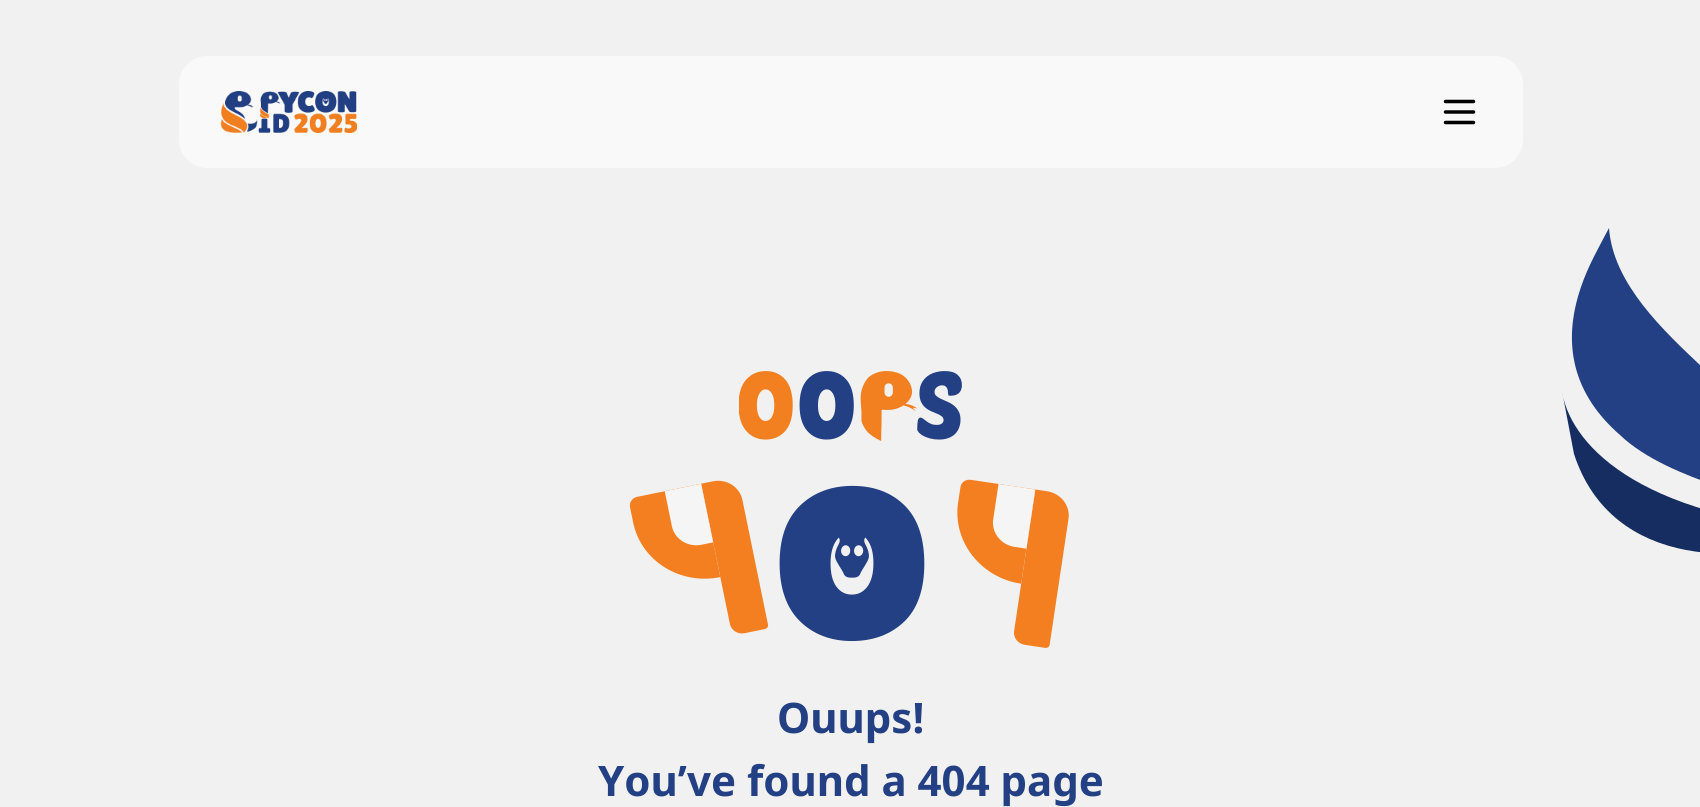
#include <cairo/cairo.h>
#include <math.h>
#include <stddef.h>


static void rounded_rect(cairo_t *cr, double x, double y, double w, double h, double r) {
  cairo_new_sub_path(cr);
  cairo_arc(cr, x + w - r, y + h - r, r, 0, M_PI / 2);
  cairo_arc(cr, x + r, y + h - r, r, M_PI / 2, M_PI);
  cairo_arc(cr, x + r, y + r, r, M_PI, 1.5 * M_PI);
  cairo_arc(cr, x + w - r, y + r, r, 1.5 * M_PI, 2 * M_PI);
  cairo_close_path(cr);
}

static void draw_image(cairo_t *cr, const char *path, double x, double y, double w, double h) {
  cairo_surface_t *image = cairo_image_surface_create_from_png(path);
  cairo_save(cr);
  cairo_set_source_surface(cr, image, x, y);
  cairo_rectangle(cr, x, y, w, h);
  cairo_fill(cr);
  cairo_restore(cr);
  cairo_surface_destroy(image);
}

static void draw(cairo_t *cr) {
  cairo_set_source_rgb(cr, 241 / 255.0, 241 / 255.0, 241 / 255.0);
  cairo_paint(cr);
  cairo_set_source_rgb(cr, 249 / 255.0, 249 / 255.0, 249 / 255.0);
  rounded_rect(cr, 179, 56, 1344, 112, 28);
  cairo_fill(cr);
  draw_image(cr, "images/1.png", 220, 91, 137, 42);
  cairo_new_path(cr);
  cairo_move_to(cr, 1445.5, 112);
  cairo_line_to(cr, 1473.5, 112);
  cairo_move_to(cr, 1445.5, 122.5);
  cairo_line_to(cr, 1473.5, 122.5);
  cairo_move_to(cr, 1445.5, 101.5);
  cairo_line_to(cr, 1473.5, 101.5);
  cairo_set_source_rgb(cr, 0, 0, 0);
  cairo_set_line_width(cr, 3.5);
  cairo_set_line_cap(cr, CAIRO_LINE_CAP_ROUND);
  cairo_set_line_join(cr, CAIRO_LINE_JOIN_ROUND);
  cairo_stroke(cr);
  cairo_set_source_rgb(cr, 34 / 255.0, 64 / 255.0, 131 / 255.0);
  cairo_new_path(cr);
  cairo_move_to(cr, 1609, 228);
  cairo_curve_to(cr, 1613, 284, 1664, 331, 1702, 367);
  cairo_line_to(cr, 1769, 429);
  cairo_curve_to(cr, 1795, 452, 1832, 482, 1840, 519);
  cairo_line_to(cr, 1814, 513);
  cairo_curve_to(cr, 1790, 507, 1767, 500, 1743, 494);
  cairo_line_to(cr, 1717, 486);
  cairo_curve_to(cr, 1685, 475, 1645, 459, 1620, 435);
  cairo_curve_to(cr, 1574, 395, 1561, 345, 1581, 287);
  cairo_curve_to(cr, 1588, 266, 1599, 247, 1609, 228);
  cairo_close_path(cr);
  cairo_fill(cr);
  cairo_set_source_rgb(cr, 22 / 255.0, 45 / 255.0, 97 / 255.0);
  cairo_new_path(cr);
  cairo_move_to(cr, 1562, 379);
  cairo_line_to(cr, 1562, 391);
  cairo_line_to(cr, 1574, 454);
  cairo_curve_to(cr, 1612, 570, 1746, 568, 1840, 532);
  cairo_curve_to(cr, 1630, 518, 1569, 439, 1562, 391);
  cairo_close_path(cr);
  cairo_fill(cr);
  draw_image(cr, "images/2.png", 739, 371, 223, 70);
  draw_image(cr, "images/3.png", 629, 479, 440, 169);
  cairo_select_font_face(cr, "Noto Sans", CAIRO_FONT_SLANT_NORMAL, CAIRO_FONT_WEIGHT_BOLD);
  cairo_set_font_size(cr, 42);
  cairo_set_source_rgb(cr, 34 / 255.0, 64 / 255.0, 131 / 255.0);
  cairo_move_to(cr, 777, 733);
  cairo_show_text(cr, "Ouups!");
  cairo_move_to(cr, 598, 796);
  cairo_show_text(cr, "You’ve found a 404 page");
}

int main(void) {
  cairo_surface_t *surface = cairo_image_surface_create(CAIRO_FORMAT_RGB24, 1700, 807);
  cairo_t *cr = cairo_create(surface);
  cairo_font_options_t *options = cairo_font_options_create();
  cairo_font_options_set_hint_metrics(options, CAIRO_HINT_METRICS_OFF);
  cairo_font_options_set_hint_style(options, CAIRO_HINT_STYLE_NONE);
  cairo_set_font_options(cr, options);
  cairo_set_miter_limit(cr, 4);
  draw(cr);
  cairo_surface_write_to_png(surface, "out.png");
  cairo_font_options_destroy(options);
  cairo_destroy(cr);
  cairo_surface_destroy(surface);
  return 0;
}
